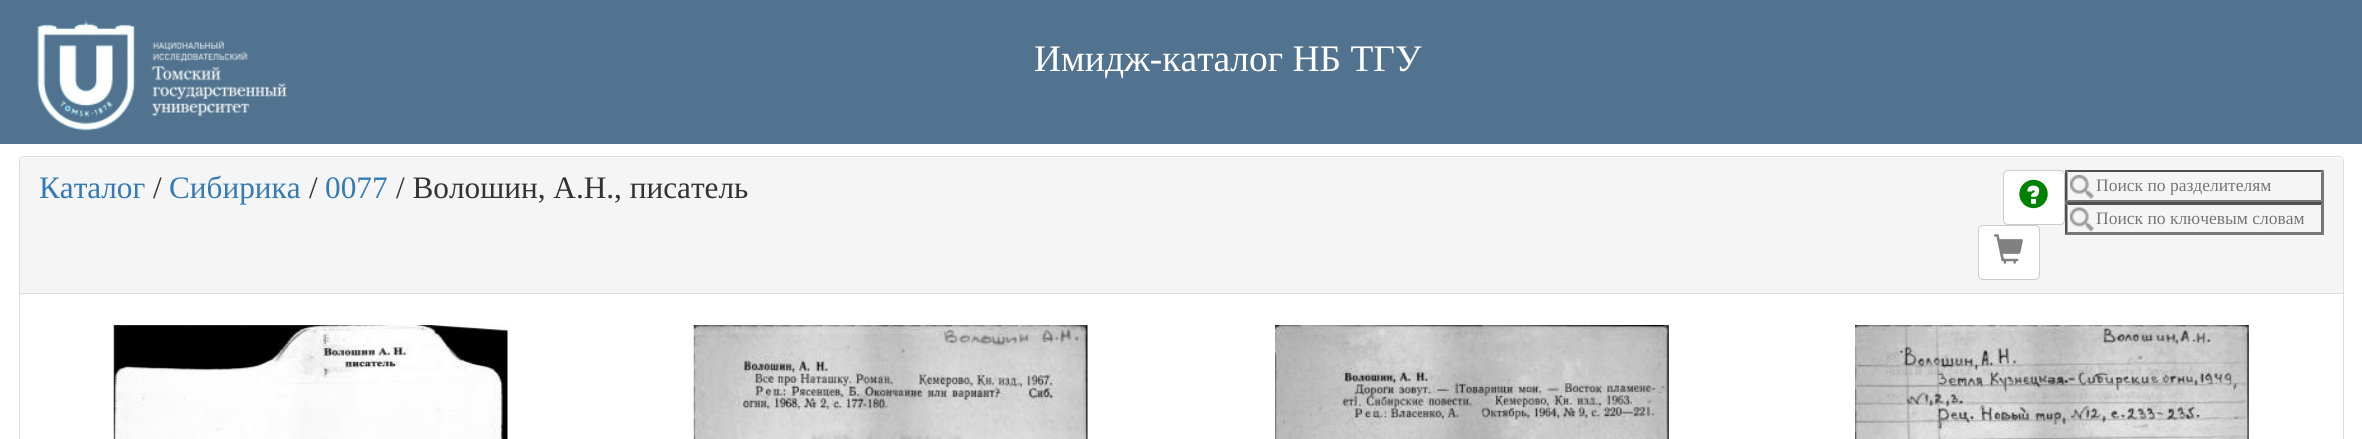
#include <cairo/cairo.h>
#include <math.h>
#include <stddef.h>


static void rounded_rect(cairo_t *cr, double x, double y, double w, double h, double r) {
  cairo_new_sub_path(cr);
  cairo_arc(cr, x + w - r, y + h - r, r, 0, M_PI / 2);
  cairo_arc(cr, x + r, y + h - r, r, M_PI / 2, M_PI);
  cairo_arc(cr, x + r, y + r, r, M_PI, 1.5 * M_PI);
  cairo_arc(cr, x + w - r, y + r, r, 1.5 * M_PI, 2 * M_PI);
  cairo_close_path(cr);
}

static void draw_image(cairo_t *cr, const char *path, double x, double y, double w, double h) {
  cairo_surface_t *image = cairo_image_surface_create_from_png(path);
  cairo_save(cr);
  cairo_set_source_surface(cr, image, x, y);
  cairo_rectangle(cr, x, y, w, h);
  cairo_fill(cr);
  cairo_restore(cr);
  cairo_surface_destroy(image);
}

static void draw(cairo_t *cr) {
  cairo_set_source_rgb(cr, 1, 1, 1);
  cairo_paint(cr);
  cairo_set_source_rgb(cr, 81 / 255.0, 115 / 255.0, 143 / 255.0);
  cairo_rectangle(cr, 0, 0, 2362, 144);
  cairo_fill(cr);
  draw_image(cr, "images/1.png", 37, 19, 250, 112);
  rounded_rect(cr, 19.5, 156.5, 2324, 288, 4.5);
  cairo_set_source_rgb(cr, 221 / 255.0, 221 / 255.0, 221 / 255.0);
  cairo_set_line_width(cr, 1);
  cairo_stroke(cr);
  cairo_set_source_rgb(cr, 245 / 255.0, 245 / 255.0, 245 / 255.0);
  cairo_new_path(cr);
  cairo_move_to(cr, 24, 158);
  cairo_line_to(cr, 2339, 158);
  cairo_curve_to(cr, 2341, 158, 2343, 160, 2343, 162);
  cairo_line_to(cr, 2343, 294);
  cairo_line_to(cr, 20, 294);
  cairo_line_to(cr, 20, 162);
  cairo_curve_to(cr, 20, 160, 22, 158, 24, 158);
  cairo_close_path(cr);
  cairo_fill(cr);
  cairo_set_source_rgb(cr, 221 / 255.0, 221 / 255.0, 221 / 255.0);
  cairo_rectangle(cr, 20, 293, 2323, 1);
  cairo_fill(cr);
  cairo_set_source_rgb(cr, 1, 1, 1);
  rounded_rect(cr, 2003.5, 170.5, 61, 54, 4.5);
  cairo_fill_preserve(cr);
  cairo_set_source_rgb(cr, 204 / 255.0, 204 / 255.0, 204 / 255.0);
  cairo_stroke(cr);
  draw_image(cr, "images/2.png", 2019, 179, 29, 30);
  draw_image(cr, "images/3.png", 2070, 175, 24, 24);
  cairo_set_source_rgb(cr, 79 / 255.0, 79 / 255.0, 79 / 255.0);
  cairo_new_path(cr);
  cairo_move_to(cr, 2065, 170);
  cairo_line_to(cr, 2324, 170);
  cairo_line_to(cr, 2321, 172);
  cairo_line_to(cr, 2068, 172);
  cairo_close_path(cr);
  cairo_fill(cr);
  cairo_set_source_rgb(cr, 118 / 255.0, 118 / 255.0, 118 / 255.0);
  cairo_new_path(cr);
  cairo_move_to(cr, 2324, 170);
  cairo_line_to(cr, 2324, 202.5);
  cairo_line_to(cr, 2321, 200);
  cairo_line_to(cr, 2321, 172.5);
  cairo_close_path(cr);
  cairo_fill(cr);
  cairo_new_path(cr);
  cairo_move_to(cr, 2324, 202);
  cairo_line_to(cr, 2065, 202);
  cairo_line_to(cr, 2068, 200);
  cairo_line_to(cr, 2321, 200);
  cairo_close_path(cr);
  cairo_fill(cr);
  cairo_set_source_rgb(cr, 79 / 255.0, 79 / 255.0, 79 / 255.0);
  cairo_new_path(cr);
  cairo_move_to(cr, 2065, 202.5);
  cairo_line_to(cr, 2065, 170);
  cairo_line_to(cr, 2067.5, 172.5);
  cairo_line_to(cr, 2067.5, 200);
  cairo_close_path(cr);
  cairo_fill(cr);
  draw_image(cr, "images/4.png", 2070, 207, 24, 25);
  cairo_new_path(cr);
  cairo_move_to(cr, 2065, 202);
  cairo_line_to(cr, 2324, 202);
  cairo_line_to(cr, 2321, 205);
  cairo_line_to(cr, 2068, 205);
  cairo_close_path(cr);
  cairo_fill(cr);
  cairo_set_source_rgb(cr, 118 / 255.0, 118 / 255.0, 118 / 255.0);
  cairo_new_path(cr);
  cairo_move_to(cr, 2324, 202.5);
  cairo_line_to(cr, 2324, 235);
  cairo_line_to(cr, 2321, 232.5);
  cairo_line_to(cr, 2321, 205);
  cairo_close_path(cr);
  cairo_fill(cr);
  cairo_new_path(cr);
  cairo_move_to(cr, 2324, 235);
  cairo_line_to(cr, 2065, 235);
  cairo_line_to(cr, 2068, 232);
  cairo_line_to(cr, 2321, 232);
  cairo_close_path(cr);
  cairo_fill(cr);
  cairo_set_source_rgb(cr, 79 / 255.0, 79 / 255.0, 79 / 255.0);
  cairo_new_path(cr);
  cairo_move_to(cr, 2065, 235);
  cairo_line_to(cr, 2065, 202.5);
  cairo_line_to(cr, 2067.5, 205);
  cairo_line_to(cr, 2067.5, 232.5);
  cairo_close_path(cr);
  cairo_fill(cr);
  cairo_set_source_rgb(cr, 1, 1, 1);
  rounded_rect(cr, 1978.5, 225.5, 61, 54, 4.5);
  cairo_fill_preserve(cr);
  cairo_set_source_rgb(cr, 204 / 255.0, 204 / 255.0, 204 / 255.0);
  cairo_stroke(cr);
  draw_image(cr, "images/5.png", 1993, 234, 30, 30);
  draw_image(cr, "images/6.png", 113, 325, 395, 114);
  draw_image(cr, "images/7.png", 693, 325, 395, 114);
  draw_image(cr, "images/8.png", 1275, 325, 394, 114);
  draw_image(cr, "images/9.png", 1855, 325, 394, 114);
  cairo_select_font_face(cr, "Liberation Serif", CAIRO_FONT_SLANT_NORMAL, CAIRO_FONT_WEIGHT_NORMAL);
  cairo_set_font_size(cr, 37.5);
  cairo_set_source_rgb(cr, 1, 1, 1);
  cairo_move_to(cr, 1034, 71);
  cairo_show_text(cr, "Имидж-каталог НБ ТГУ");
  cairo_set_font_size(cr, 31.25);
  cairo_set_source_rgb(cr, 51 / 255.0, 122 / 255.0, 183 / 255.0);
  cairo_move_to(cr, 39, 198);
  cairo_show_text(cr, "Каталог");
  cairo_set_source_rgb(cr, 51 / 255.0, 51 / 255.0, 51 / 255.0);
  cairo_move_to(cr, 153, 198);
  cairo_show_text(cr, "/");
  cairo_set_source_rgb(cr, 51 / 255.0, 122 / 255.0, 183 / 255.0);
  cairo_move_to(cr, 169, 198);
  cairo_show_text(cr, "Сибирика");
  cairo_set_source_rgb(cr, 51 / 255.0, 51 / 255.0, 51 / 255.0);
  cairo_move_to(cr, 309, 198);
  cairo_show_text(cr, "/");
  cairo_set_source_rgb(cr, 51 / 255.0, 122 / 255.0, 183 / 255.0);
  cairo_move_to(cr, 325, 198);
  cairo_show_text(cr, "0077");
  cairo_set_source_rgb(cr, 51 / 255.0, 51 / 255.0, 51 / 255.0);
  cairo_move_to(cr, 396, 198);
  cairo_show_text(cr, "/ Волошин, А.Н., писатель");
  cairo_set_font_size(cr, 17.5);
  cairo_set_source_rgb(cr, 117 / 255.0, 117 / 255.0, 117 / 255.0);
  cairo_move_to(cr, 2096, 191);
  cairo_show_text(cr, "Поиск по разделителям");
  cairo_move_to(cr, 2096, 224);
  cairo_show_text(cr, "Поиск по ключевым словам");
}

int main(void) {
  cairo_surface_t *surface = cairo_image_surface_create(CAIRO_FORMAT_RGB24, 2362, 439);
  cairo_t *cr = cairo_create(surface);
  cairo_font_options_t *options = cairo_font_options_create();
  cairo_font_options_set_hint_metrics(options, CAIRO_HINT_METRICS_OFF);
  cairo_font_options_set_hint_style(options, CAIRO_HINT_STYLE_NONE);
  cairo_set_font_options(cr, options);
  cairo_set_miter_limit(cr, 4);
  draw(cr);
  cairo_surface_write_to_png(surface, "out.png");
  cairo_font_options_destroy(options);
  cairo_destroy(cr);
  cairo_surface_destroy(surface);
  return 0;
}
